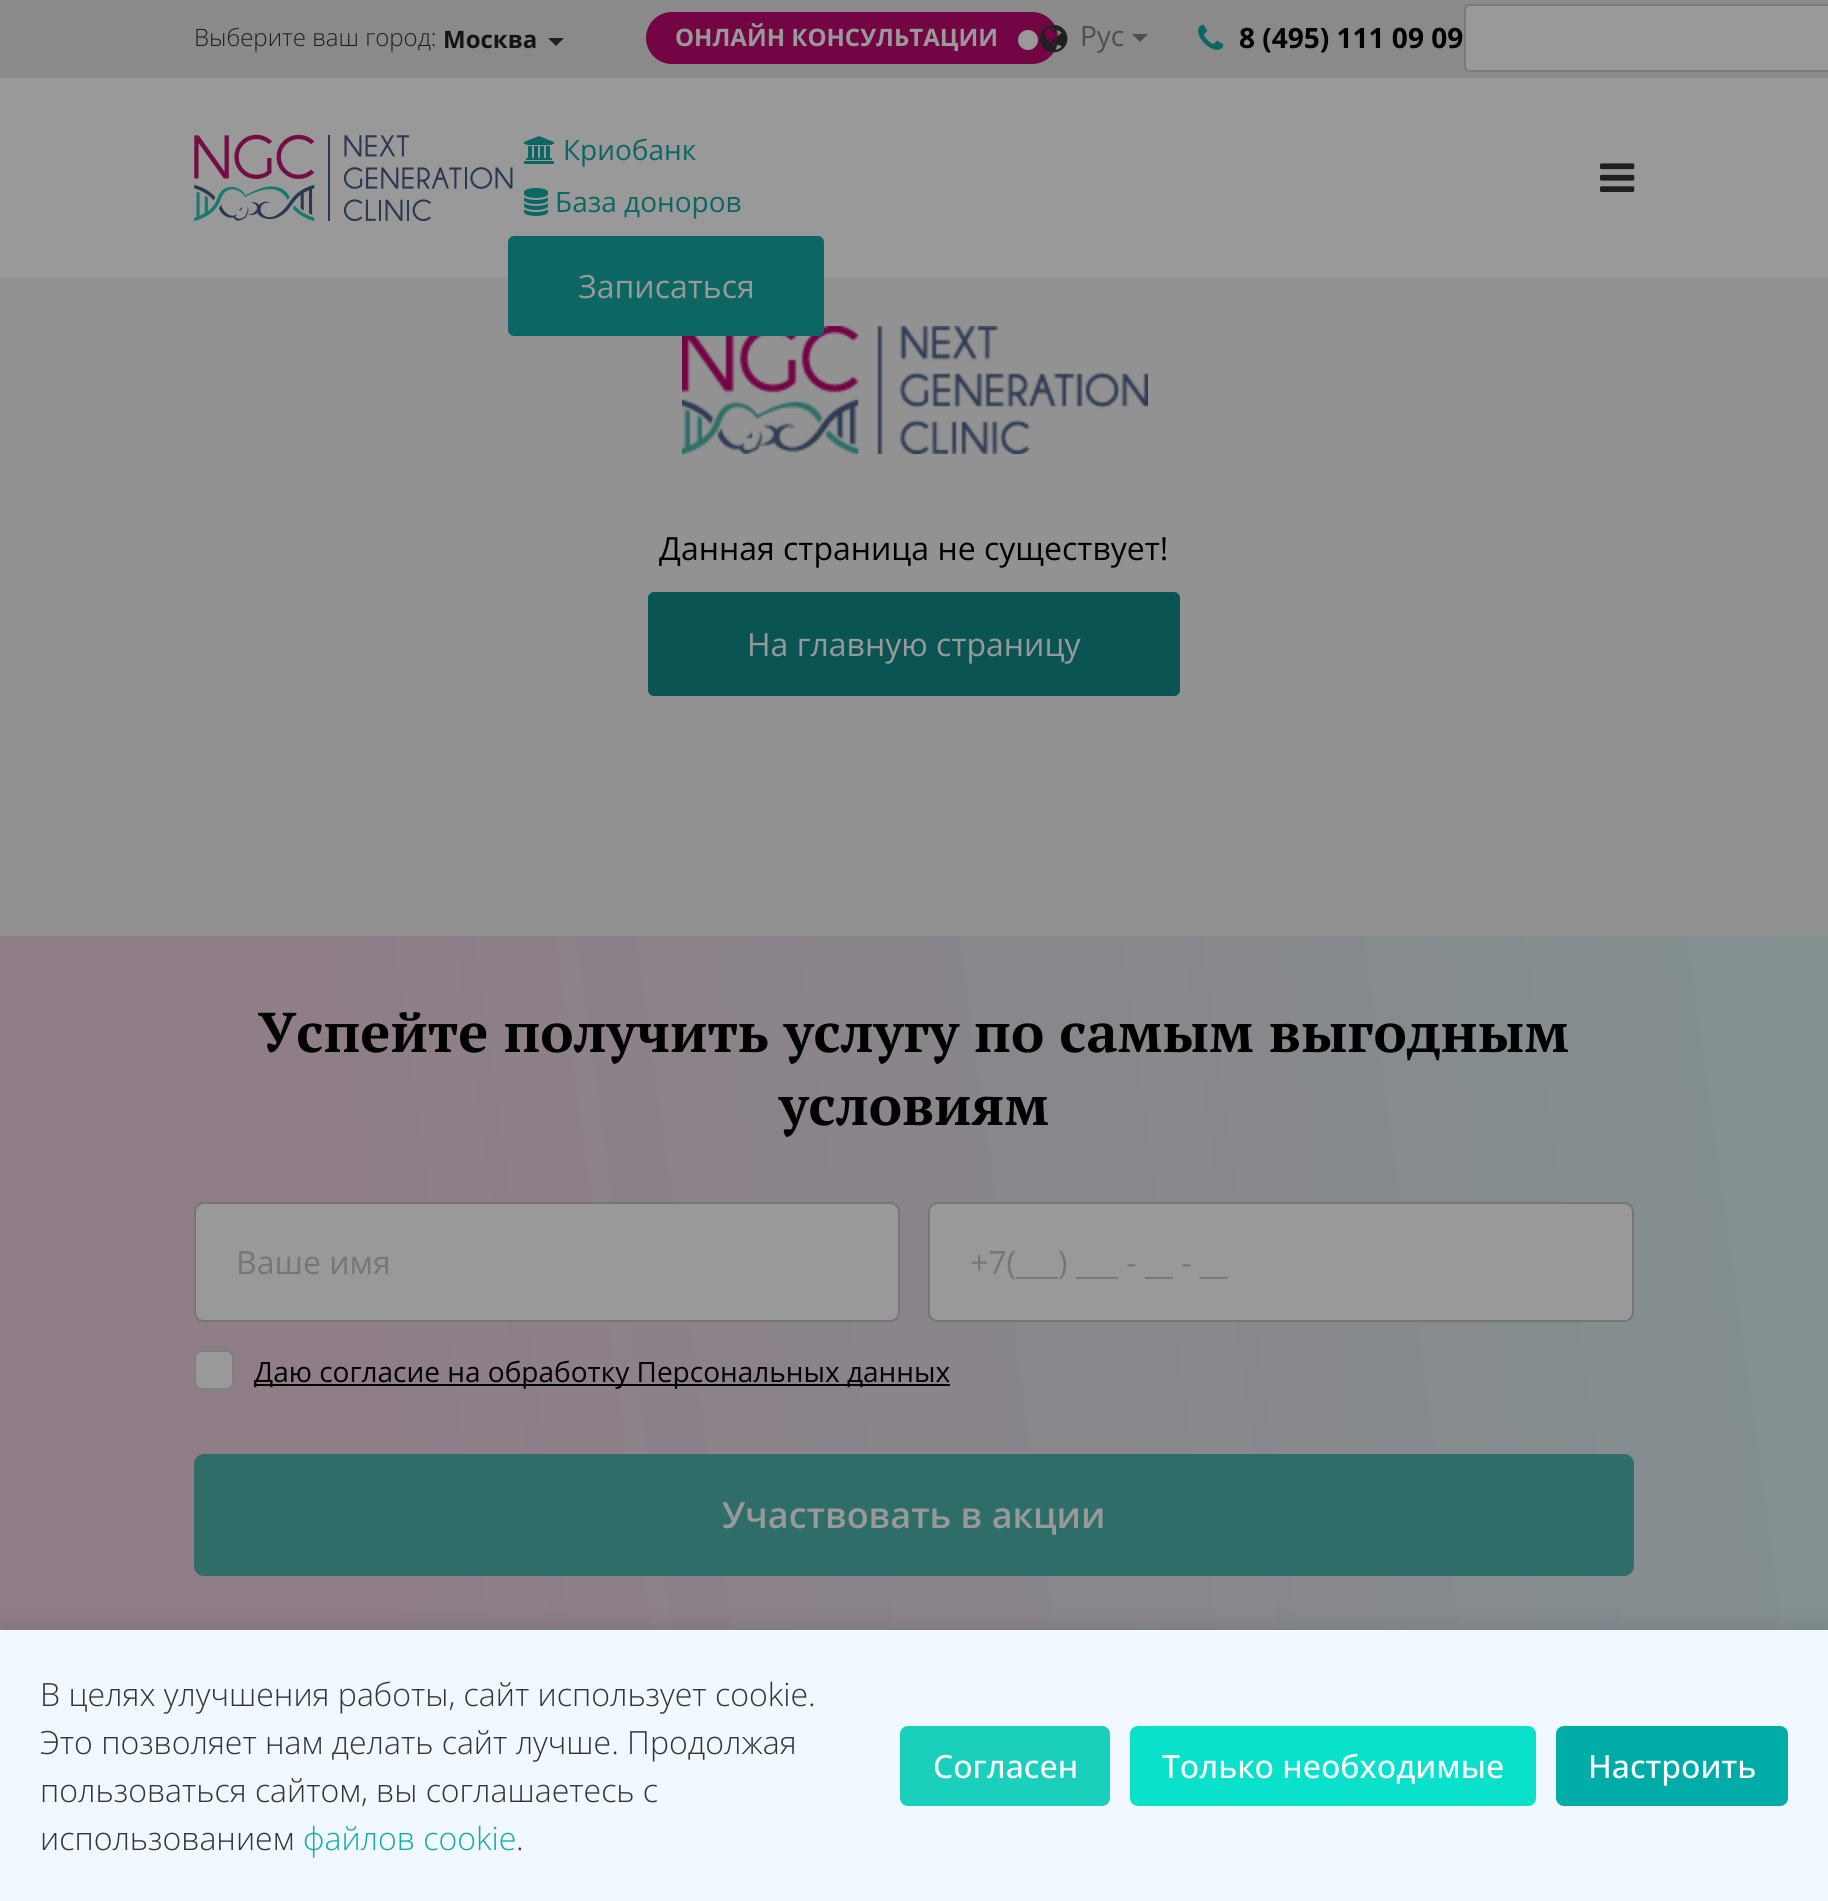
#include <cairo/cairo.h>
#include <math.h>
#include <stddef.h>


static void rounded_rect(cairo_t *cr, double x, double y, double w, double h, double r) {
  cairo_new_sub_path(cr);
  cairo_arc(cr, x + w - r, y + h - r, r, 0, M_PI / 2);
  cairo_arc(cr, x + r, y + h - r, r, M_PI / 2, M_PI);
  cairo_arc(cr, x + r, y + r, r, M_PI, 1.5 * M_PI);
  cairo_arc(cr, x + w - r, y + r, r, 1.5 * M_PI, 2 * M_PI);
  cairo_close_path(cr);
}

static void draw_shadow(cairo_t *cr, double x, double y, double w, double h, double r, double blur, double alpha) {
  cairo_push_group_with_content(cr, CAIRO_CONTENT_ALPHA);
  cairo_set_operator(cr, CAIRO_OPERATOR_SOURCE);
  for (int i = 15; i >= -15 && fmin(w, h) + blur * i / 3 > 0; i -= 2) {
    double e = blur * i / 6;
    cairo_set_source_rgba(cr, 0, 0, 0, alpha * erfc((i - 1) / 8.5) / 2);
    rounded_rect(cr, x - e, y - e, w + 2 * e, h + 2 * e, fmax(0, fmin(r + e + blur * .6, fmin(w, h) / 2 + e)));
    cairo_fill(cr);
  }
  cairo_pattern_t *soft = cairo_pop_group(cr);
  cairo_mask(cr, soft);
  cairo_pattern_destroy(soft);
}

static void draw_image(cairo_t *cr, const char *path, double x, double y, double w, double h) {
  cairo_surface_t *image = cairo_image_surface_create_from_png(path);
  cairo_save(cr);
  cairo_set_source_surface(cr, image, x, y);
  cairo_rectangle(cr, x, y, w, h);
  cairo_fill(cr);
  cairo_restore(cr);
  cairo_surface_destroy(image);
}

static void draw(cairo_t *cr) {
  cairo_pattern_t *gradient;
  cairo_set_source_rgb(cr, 146 / 255.0, 146 / 255.0, 146 / 255.0);
  cairo_paint(cr);
  cairo_set_source_rgb(cr, 138 / 255.0, 138 / 255.0, 138 / 255.0);
  cairo_rectangle(cr, 0, 0, 1828, 78);
  cairo_fill(cr);
  cairo_set_source_rgb(cr, 31 / 255.0, 31 / 255.0, 31 / 255.0);
  cairo_new_path(cr);
  cairo_move_to(cr, 548, 38);
  cairo_line_to(cr, 564, 38);
  cairo_line_to(cr, 556, 46);
  cairo_close_path(cr);
  cairo_fill(cr);
  cairo_set_source_rgb(cr, 115 / 255.0, 5 / 255.0, 69 / 255.0);
  rounded_rect(cr, 646, 12, 412, 52, 26);
  cairo_fill(cr);
  cairo_set_source_rgb(cr, 153 / 255.0, 153 / 255.0, 153 / 255.0);
  cairo_arc(cr, 1028, 40, 10, 0, 2 * M_PI);
  cairo_fill(cr);
  draw_image(cr, "images/1.png", 1040, 24, 28, 29);
  cairo_set_source_rgb(cr, 79 / 255.0, 79 / 255.0, 79 / 255.0);
  cairo_new_path(cr);
  cairo_move_to(cr, 1132, 34);
  cairo_line_to(cr, 1148, 34);
  cairo_line_to(cr, 1140, 42);
  cairo_close_path(cr);
  cairo_fill(cr);
  draw_image(cr, "images/2.png", 1198, 24, 26, 26);
  cairo_set_source_rgb(cr, 153 / 255.0, 153 / 255.0, 153 / 255.0);
  rounded_rect(cr, 1465, 5, 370, 66, 5);
  cairo_fill_preserve(cr);
  cairo_set_source_rgb(cr, 122 / 255.0, 122 / 255.0, 122 / 255.0);
  cairo_stroke(cr);
  cairo_set_source_rgb(cr, 153 / 255.0, 153 / 255.0, 153 / 255.0);
  cairo_rectangle(cr, 0, 78, 1828, 200);
  cairo_fill(cr);
  draw_image(cr, "images/3.png", 194, 134, 319, 88);
  draw_image(cr, "images/4.png", 524, 136, 30, 28);
  draw_image(cr, "images/5.png", 524, 188, 24, 28);
  draw_image(cr, "images/7.png", 682, 326, 466, 128);
  cairo_set_source_rgb(cr, 11 / 255.0, 102 / 255.0, 100 / 255.0);
  rounded_rect(cr, 508, 236, 316, 100, 6);
  cairo_fill(cr);
  draw_image(cr, "images/6.png", 1600, 163, 35, 29);
  cairo_set_source_rgb(cr, 10 / 255.0, 85 / 255.0, 84 / 255.0);
  rounded_rect(cr, 648, 592, 532, 104, 6);
  cairo_fill(cr);
  gradient = cairo_pattern_create_linear(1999, 1146, -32, 1427);
  cairo_pattern_add_color_stop_rgba(gradient, 0, 129 / 255.0, 146 / 255.0, 145 / 255.0, 1);
  cairo_pattern_add_color_stop_rgba(gradient, 0.82, 143 / 255.0, 125 / 255.0, 136 / 255.0, 1);
  cairo_set_source(cr, gradient);
  cairo_pattern_destroy(gradient);
  cairo_rectangle(cr, 0, 936, 1828, 694);
  cairo_fill(cr);
  cairo_set_source_rgb(cr, 153 / 255.0, 153 / 255.0, 153 / 255.0);
  rounded_rect(cr, 195, 1203, 704, 118, 9);
  cairo_fill_preserve(cr);
  cairo_set_source_rgb(cr, 118 / 255.0, 118 / 255.0, 118 / 255.0);
  cairo_stroke(cr);
  cairo_set_source_rgb(cr, 153 / 255.0, 153 / 255.0, 153 / 255.0);
  rounded_rect(cr, 929, 1203, 704, 118, 9);
  cairo_fill_preserve(cr);
  cairo_set_source_rgb(cr, 118 / 255.0, 118 / 255.0, 118 / 255.0);
  cairo_stroke(cr);
  cairo_set_source_rgb(cr, 153 / 255.0, 153 / 255.0, 153 / 255.0);
  rounded_rect(cr, 195, 1351, 38, 38, 7);
  cairo_fill_preserve(cr);
  cairo_set_source_rgb(cr, 124 / 255.0, 130 / 255.0, 131 / 255.0);
  cairo_stroke(cr);
  cairo_set_source_rgb(cr, 0, 0, 0);
  cairo_rectangle(cr, 254, 1384, 696, 2);
  cairo_fill(cr);
  cairo_set_source_rgb(cr, 47 / 255.0, 110 / 255.0, 104 / 255.0);
  rounded_rect(cr, 194, 1454, 1440, 122, 10);
  cairo_fill(cr);
  cairo_set_source_rgb(cr, 0, 0, 0);
  draw_shadow(cr, 0, 1626, 1828, 272, 0, 10, 0.1);
  cairo_set_source_rgb(cr, 241 / 255.0, 248 / 255.0, 1);
  cairo_rectangle(cr, 0, 1630, 1828, 271);
  cairo_fill(cr);
  cairo_set_source_rgb(cr, 26 / 255.0, 207 / 255.0, 188 / 255.0);
  rounded_rect(cr, 900, 1726, 210, 80, 8);
  cairo_fill(cr);
  cairo_set_source_rgb(cr, 9 / 255.0, 225 / 255.0, 203 / 255.0);
  rounded_rect(cr, 1130, 1726, 406, 80, 8);
  cairo_fill(cr);
  cairo_set_source_rgb(cr, 0, 172 / 255.0, 168 / 255.0);
  rounded_rect(cr, 1556, 1726, 232, 80, 8);
  cairo_fill(cr);
  cairo_select_font_face(cr, "Open Sans Light", CAIRO_FONT_SLANT_NORMAL, CAIRO_FONT_WEIGHT_NORMAL);
  cairo_set_font_size(cr, 24);
  cairo_set_source_rgb(cr, 31 / 255.0, 31 / 255.0, 31 / 255.0);
  cairo_move_to(cr, 194, 46);
  cairo_show_text(cr, "Выберите ваш город:");
  cairo_select_font_face(cr, "Open Sans", CAIRO_FONT_SLANT_NORMAL, CAIRO_FONT_WEIGHT_BOLD);
  cairo_set_source_rgb(cr, 20 / 255.0, 20 / 255.0, 20 / 255.0);
  cairo_move_to(cr, 443, 48);
  cairo_show_text(cr, "Москва");
  cairo_set_source_rgb(cr, 153 / 255.0, 153 / 255.0, 153 / 255.0);
  cairo_move_to(cr, 675, 46);
  cairo_show_text(cr, "ОНЛАЙН КОНСУЛЬТАЦИИ");
  cairo_select_font_face(cr, "Open Sans", CAIRO_FONT_SLANT_NORMAL, CAIRO_FONT_WEIGHT_NORMAL);
  cairo_set_font_size(cr, 28);
  cairo_set_source_rgb(cr, 79 / 255.0, 79 / 255.0, 79 / 255.0);
  cairo_move_to(cr, 1080, 46);
  cairo_show_text(cr, "Рус");
  cairo_select_font_face(cr, "Open Sans", CAIRO_FONT_SLANT_NORMAL, CAIRO_FONT_WEIGHT_BOLD);
  cairo_set_source_rgb(cr, 0, 0, 0);
  cairo_move_to(cr, 1239, 48);
  cairo_show_text(cr, "8 (495) 111 09 09");
  cairo_select_font_face(cr, "Open Sans", CAIRO_FONT_SLANT_NORMAL, CAIRO_FONT_WEIGHT_NORMAL);
  cairo_set_source_rgb(cr, 11 / 255.0, 102 / 255.0, 100 / 255.0);
  cairo_move_to(cr, 563, 160);
  cairo_show_text(cr, "Криобанк");
  cairo_move_to(cr, 555, 212);
  cairo_show_text(cr, "База доноров");
  cairo_set_font_size(cr, 32);
  cairo_set_source_rgb(cr, 153 / 255.0, 153 / 255.0, 153 / 255.0);
  cairo_move_to(cr, 578, 298);
  cairo_show_text(cr, "Записаться");
  cairo_set_source_rgb(cr, 0, 0, 0);
  cairo_move_to(cr, 659, 560);
  cairo_show_text(cr, "Данная страница не существует!");
  cairo_set_source_rgb(cr, 153 / 255.0, 153 / 255.0, 153 / 255.0);
  cairo_move_to(cr, 747, 656);
  cairo_show_text(cr, "На главную страницу");
  cairo_select_font_face(cr, "PT Serif", CAIRO_FONT_SLANT_NORMAL, CAIRO_FONT_WEIGHT_BOLD);
  cairo_set_font_size(cr, 56);
  cairo_set_source_rgb(cr, 0, 0, 0);
  cairo_move_to(cr, 258, 1052);
  cairo_show_text(cr, "Успейте получить услугу по самым выгодным");
  cairo_move_to(cr, 779, 1125);
  cairo_show_text(cr, "условиям");
  cairo_select_font_face(cr, "Open Sans", CAIRO_FONT_SLANT_NORMAL, CAIRO_FONT_WEIGHT_NORMAL);
  cairo_set_font_size(cr, 32);
  cairo_set_source_rgb(cr, 118 / 255.0, 118 / 255.0, 118 / 255.0);
  cairo_move_to(cr, 236, 1274);
  cairo_show_text(cr, "Ваше имя");
  cairo_move_to(cr, 970, 1274);
  cairo_show_text(cr, "+7(___) ___ - __ - __");
  cairo_set_font_size(cr, 28);
  cairo_set_source_rgb(cr, 0, 0, 0);
  cairo_move_to(cr, 254, 1382);
  cairo_show_text(cr, "Даю согласие на обработку Персональных данных");
  cairo_select_font_face(cr, "Open Sans SemiBold", CAIRO_FONT_SLANT_NORMAL, CAIRO_FONT_WEIGHT_NORMAL);
  cairo_set_font_size(cr, 36);
  cairo_set_source_rgb(cr, 153 / 255.0, 153 / 255.0, 153 / 255.0);
  cairo_move_to(cr, 722, 1528);
  cairo_show_text(cr, "Участвовать в акции");
  cairo_select_font_face(cr, "Open Sans Light", CAIRO_FONT_SLANT_NORMAL, CAIRO_FONT_WEIGHT_NORMAL);
  cairo_set_font_size(cr, 32);
  cairo_set_source_rgb(cr, 51 / 255.0, 51 / 255.0, 51 / 255.0);
  cairo_move_to(cr, 40, 1706);
  cairo_show_text(cr, "В целях улучшения работы, сайт использует cookie.");
  cairo_move_to(cr, 40, 1754);
  cairo_show_text(cr, "Это позволяет нам делать сайт лучше. Продолжая");
  cairo_move_to(cr, 40, 1802);
  cairo_show_text(cr, "пользоваться сайтом, вы соглашаетесь с");
  cairo_move_to(cr, 40, 1850);
  cairo_show_text(cr, "использованием");
  cairo_set_source_rgb(cr, 19 / 255.0, 170 / 255.0, 167 / 255.0);
  cairo_move_to(cr, 303, 1850);
  cairo_show_text(cr, "файлов cookie");
  cairo_set_source_rgb(cr, 51 / 255.0, 51 / 255.0, 51 / 255.0);
  cairo_move_to(cr, 516, 1850);
  cairo_show_text(cr, ".");
  cairo_select_font_face(cr, "Open Sans Medium", CAIRO_FONT_SLANT_NORMAL, CAIRO_FONT_WEIGHT_NORMAL);
  cairo_set_source_rgb(cr, 1, 1, 1);
  cairo_move_to(cr, 933, 1778);
  cairo_show_text(cr, "Согласен");
  cairo_move_to(cr, 1162, 1778);
  cairo_show_text(cr, "Только необходимые");
  cairo_move_to(cr, 1588, 1778);
  cairo_show_text(cr, "Настроить");
}

int main(void) {
  cairo_surface_t *surface = cairo_image_surface_create(CAIRO_FORMAT_RGB24, 1828, 1901);
  cairo_t *cr = cairo_create(surface);
  cairo_font_options_t *options = cairo_font_options_create();
  cairo_font_options_set_hint_metrics(options, CAIRO_HINT_METRICS_OFF);
  cairo_font_options_set_hint_style(options, CAIRO_HINT_STYLE_NONE);
  cairo_set_font_options(cr, options);
  cairo_set_miter_limit(cr, 4);
  draw(cr);
  cairo_surface_write_to_png(surface, "out.png");
  cairo_font_options_destroy(options);
  cairo_destroy(cr);
  cairo_surface_destroy(surface);
  return 0;
}
